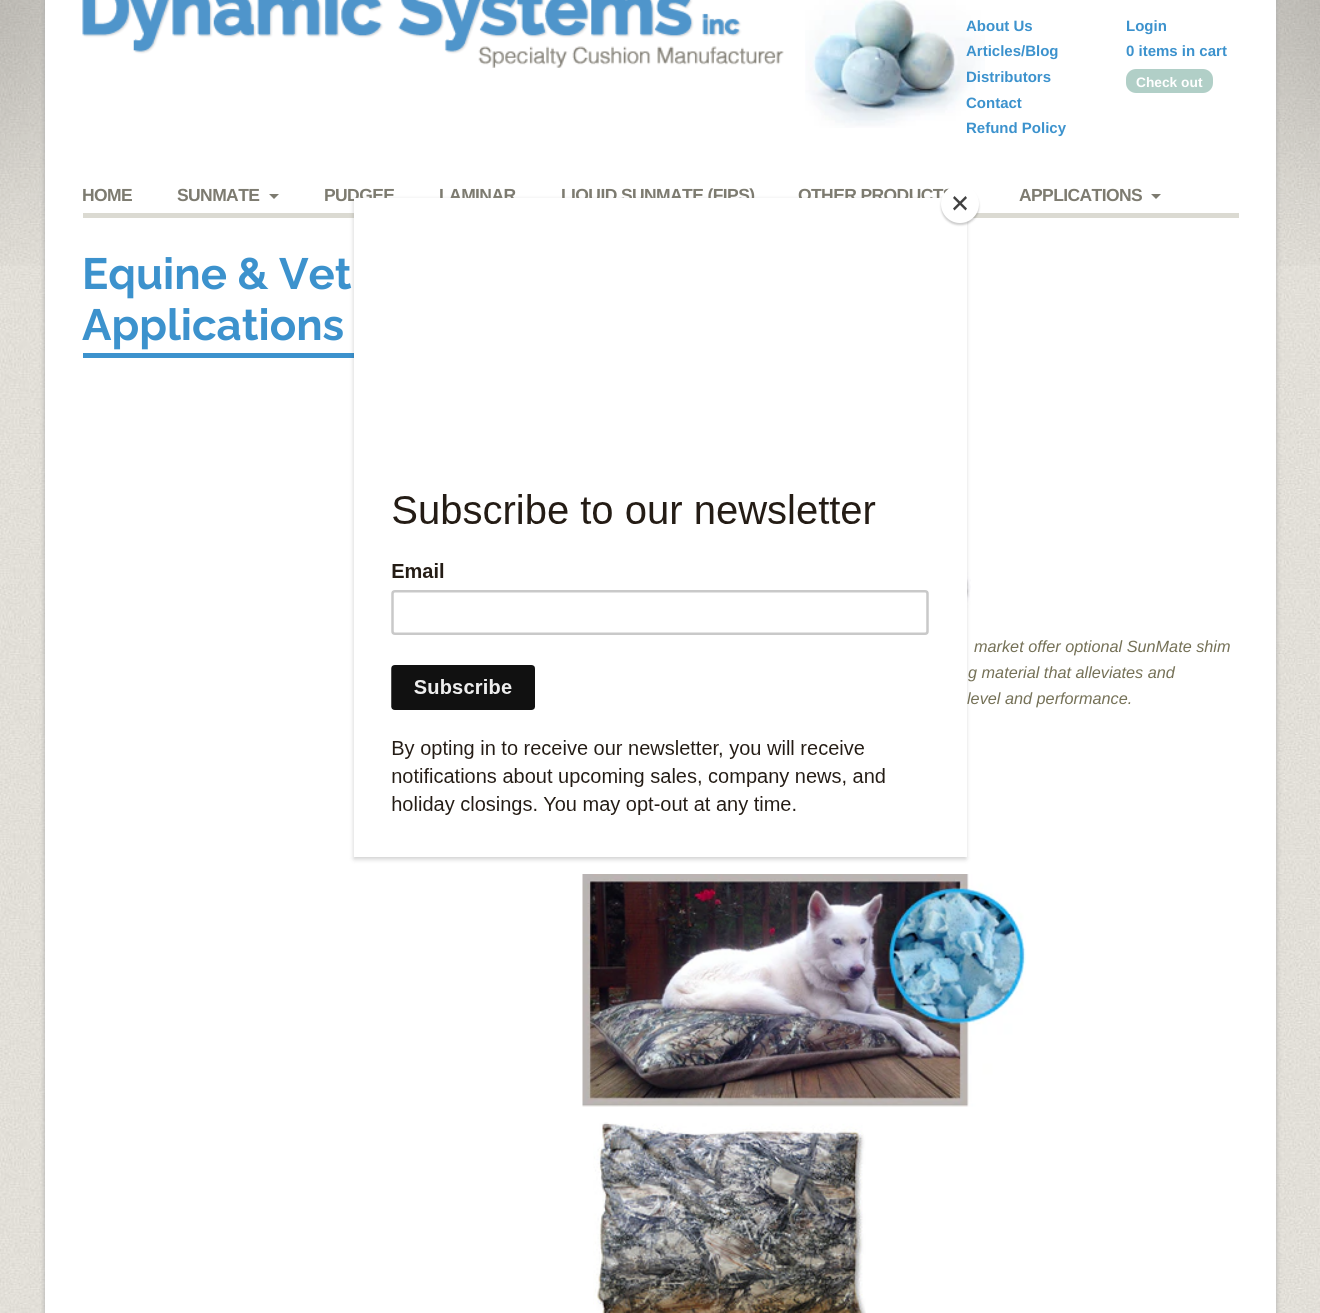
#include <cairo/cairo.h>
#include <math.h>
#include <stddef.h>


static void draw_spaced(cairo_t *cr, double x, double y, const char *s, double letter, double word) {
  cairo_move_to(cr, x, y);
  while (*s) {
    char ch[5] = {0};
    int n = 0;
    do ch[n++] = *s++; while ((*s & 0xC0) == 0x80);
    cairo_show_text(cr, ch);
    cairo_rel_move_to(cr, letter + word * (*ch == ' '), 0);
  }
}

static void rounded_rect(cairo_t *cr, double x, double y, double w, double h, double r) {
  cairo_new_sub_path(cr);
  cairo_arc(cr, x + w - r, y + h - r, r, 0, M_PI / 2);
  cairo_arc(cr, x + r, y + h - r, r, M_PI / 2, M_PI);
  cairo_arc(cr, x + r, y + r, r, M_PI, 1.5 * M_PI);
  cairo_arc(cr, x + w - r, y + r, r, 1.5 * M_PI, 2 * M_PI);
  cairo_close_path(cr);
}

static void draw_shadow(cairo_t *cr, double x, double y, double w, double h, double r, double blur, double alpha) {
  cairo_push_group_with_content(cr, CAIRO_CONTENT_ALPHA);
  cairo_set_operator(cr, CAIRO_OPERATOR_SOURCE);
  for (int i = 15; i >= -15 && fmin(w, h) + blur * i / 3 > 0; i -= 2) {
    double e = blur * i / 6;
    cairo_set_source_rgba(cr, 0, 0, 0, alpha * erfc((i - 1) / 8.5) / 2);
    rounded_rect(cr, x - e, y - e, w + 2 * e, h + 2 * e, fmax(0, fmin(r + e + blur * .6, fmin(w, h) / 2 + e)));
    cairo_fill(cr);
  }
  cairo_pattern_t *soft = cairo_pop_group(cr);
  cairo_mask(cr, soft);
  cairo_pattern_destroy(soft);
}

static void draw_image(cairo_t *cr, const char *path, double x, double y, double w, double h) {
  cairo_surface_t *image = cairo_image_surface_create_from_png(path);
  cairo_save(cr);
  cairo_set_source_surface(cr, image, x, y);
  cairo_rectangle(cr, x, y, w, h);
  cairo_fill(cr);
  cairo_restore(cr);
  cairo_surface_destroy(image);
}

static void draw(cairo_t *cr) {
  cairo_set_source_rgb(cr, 1, 1, 1);
  cairo_paint(cr);
  draw_image(cr, "images/1.png", 0, 0, 1320, 1313);
  draw_image(cr, "images/2.png", 0, 0, 45, 266);
  draw_image(cr, "images/8.png", 1276, 0, 44, 266);
  cairo_set_source_rgb(cr, 170 / 255.0, 170 / 255.0, 170 / 255.0);
  draw_shadow(cr, 45, -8, 1231, 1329, 0, 2.5, 1);
  cairo_set_source_rgb(cr, 1, 1, 1);
  cairo_rectangle(cr, 45, 0, 1231, 1313);
  cairo_fill(cr);
  draw_image(cr, "images/3.png", 805, 0, 180, 128);
  draw_image(cr, "images/4.png", 82, 0, 702, 68);
  cairo_set_source_rgb(cr, 177 / 255.0, 207 / 255.0, 199 / 255.0);
  rounded_rect(cr, 1126, 69, 87, 24, 10);
  cairo_fill(cr);
  cairo_set_source_rgb(cr, 219 / 255.0, 218 / 255.0, 210 / 255.0);
  cairo_rectangle(cr, 83, 213, 1156, 5);
  cairo_fill(cr);
  cairo_set_source_rgb(cr, 125 / 255.0, 123 / 255.0, 112 / 255.0);
  cairo_new_path(cr);
  cairo_move_to(cr, 269, 194);
  cairo_line_to(cr, 279, 194);
  cairo_line_to(cr, 274, 199);
  cairo_close_path(cr);
  cairo_fill(cr);
  cairo_new_path(cr);
  cairo_move_to(cr, 1151, 194);
  cairo_line_to(cr, 1161, 194);
  cairo_line_to(cr, 1156, 199);
  cairo_close_path(cr);
  cairo_fill(cr);
  cairo_set_source_rgb(cr, 60 / 255.0, 146 / 255.0, 205 / 255.0);
  cairo_rectangle(cr, 83, 353, 271, 5);
  cairo_fill(cr);
  draw_image(cr, "images/5.png", 967, 250, 4, 374);
  draw_image(cr, "images/6.png", 582, 874, 444, 233);
  draw_image(cr, "images/7.png", 593, 1122, 273, 191);
  cairo_set_source_rgb(cr, 0, 0, 0);
  draw_shadow(cr, 354, 200, 612, 659, 0, 2.5, 0.2);
  cairo_select_font_face(cr, "Liberation Sans", CAIRO_FONT_SLANT_NORMAL, CAIRO_FONT_WEIGHT_BOLD);
  cairo_set_font_size(cr, 15);
  cairo_set_source_rgb(cr, 60 / 255.0, 146 / 255.0, 205 / 255.0);
  cairo_move_to(cr, 966, 31);
  cairo_show_text(cr, "About Us");
  cairo_move_to(cr, 966, 56);
  cairo_show_text(cr, "Articles/Blog");
  cairo_move_to(cr, 966, 82);
  cairo_show_text(cr, "Distributors");
  cairo_move_to(cr, 966, 108);
  cairo_show_text(cr, "Contact");
  cairo_move_to(cr, 966, 133);
  cairo_show_text(cr, "Refund Policy");
  cairo_move_to(cr, 1126, 31);
  cairo_show_text(cr, "Login");
  cairo_move_to(cr, 1126, 56);
  cairo_show_text(cr, "0 items in cart");
  cairo_set_font_size(cr, 13.75);
  cairo_set_source_rgb(cr, 1, 1, 1);
  cairo_move_to(cr, 1136, 87);
  cairo_show_text(cr, "Check out");
  cairo_set_font_size(cr, 17.5);
  cairo_set_source_rgb(cr, 125 / 255.0, 123 / 255.0, 112 / 255.0);
  draw_spaced(cr, 82, 201, "HOME", -0.6, 0);
  draw_spaced(cr, 177, 201, "SUNMATE", -0.6, 0);
  draw_spaced(cr, 324, 201, "PUDGEE", -0.6, 0);
  draw_spaced(cr, 439, 201, "LAMINAR", -0.6, 0);
  draw_spaced(cr, 561, 201, "LIQUID SUNMATE (FIPS)", -0.6, 0);
  draw_spaced(cr, 798, 201, "OTHER PRODUCTS", -0.6, 0);
  draw_spaced(cr, 1019, 201, "APPLICATIONS", -0.6, 0);
  cairo_select_font_face(cr, "Raleway Thin", CAIRO_FONT_SLANT_NORMAL, CAIRO_FONT_WEIGHT_NORMAL);
  cairo_set_font_size(cr, 43.75);
  cairo_set_source_rgb(cr, 60 / 255.0, 146 / 255.0, 205 / 255.0);
  cairo_move_to(cr, 82, 289);
  cairo_show_text(cr, "Equine & Vet");
  cairo_move_to(cr, 82, 340);
  cairo_show_text(cr, "Applications");
  cairo_select_font_face(cr, "Liberation Sans", CAIRO_FONT_SLANT_ITALIC, CAIRO_FONT_WEIGHT_NORMAL);
  cairo_set_font_size(cr, 16.25);
  cairo_set_source_rgb(cr, 117 / 255.0, 113 / 255.0, 87 / 255.0);
  cairo_move_to(cr, 974, 652);
  cairo_show_text(cr, "market offer optional SunMate shim");
  cairo_move_to(cr, 968, 678);
  cairo_show_text(cr, "g material that alleviates and");
  cairo_move_to(cr, 967, 704);
  cairo_show_text(cr, "level and performance.");
  draw_image(cr, "images/9.png", 354, 198, 613, 659);
  cairo_set_source_rgb(cr, 0, 0, 0);
  draw_shadow(cr, 941, 188, 38, 37, 18.5, 1, 0.2);
  cairo_set_source_rgb(cr, 1, 1, 1);
  cairo_arc(cr, 960, 204, 19, 0, 2 * M_PI);
  cairo_fill(cr);
  cairo_set_source_rgb(cr, 65 / 255.0, 65 / 255.0, 65 / 255.0);
  cairo_new_path(cr);
  cairo_move_to(cr, 965.5, 196);
  cairo_line_to(cr, 967, 198);
  cairo_line_to(cr, 954.5, 210.5);
  cairo_line_to(cr, 953, 208.5);
  cairo_close_path(cr);
  cairo_fill(cr);
  cairo_new_path(cr);
  cairo_move_to(cr, 953, 198);
  cairo_line_to(cr, 954.5, 196);
  cairo_line_to(cr, 967, 208.5);
  cairo_line_to(cr, 965.5, 210.5);
  cairo_close_path(cr);
  cairo_fill(cr);
}

int main(void) {
  cairo_surface_t *surface = cairo_image_surface_create(CAIRO_FORMAT_RGB24, 1320, 1313);
  cairo_t *cr = cairo_create(surface);
  cairo_font_options_t *options = cairo_font_options_create();
  cairo_font_options_set_hint_metrics(options, CAIRO_HINT_METRICS_OFF);
  cairo_font_options_set_hint_style(options, CAIRO_HINT_STYLE_NONE);
  cairo_set_font_options(cr, options);
  cairo_set_miter_limit(cr, 4);
  draw(cr);
  cairo_surface_write_to_png(surface, "out.png");
  cairo_font_options_destroy(options);
  cairo_destroy(cr);
  cairo_surface_destroy(surface);
  return 0;
}
